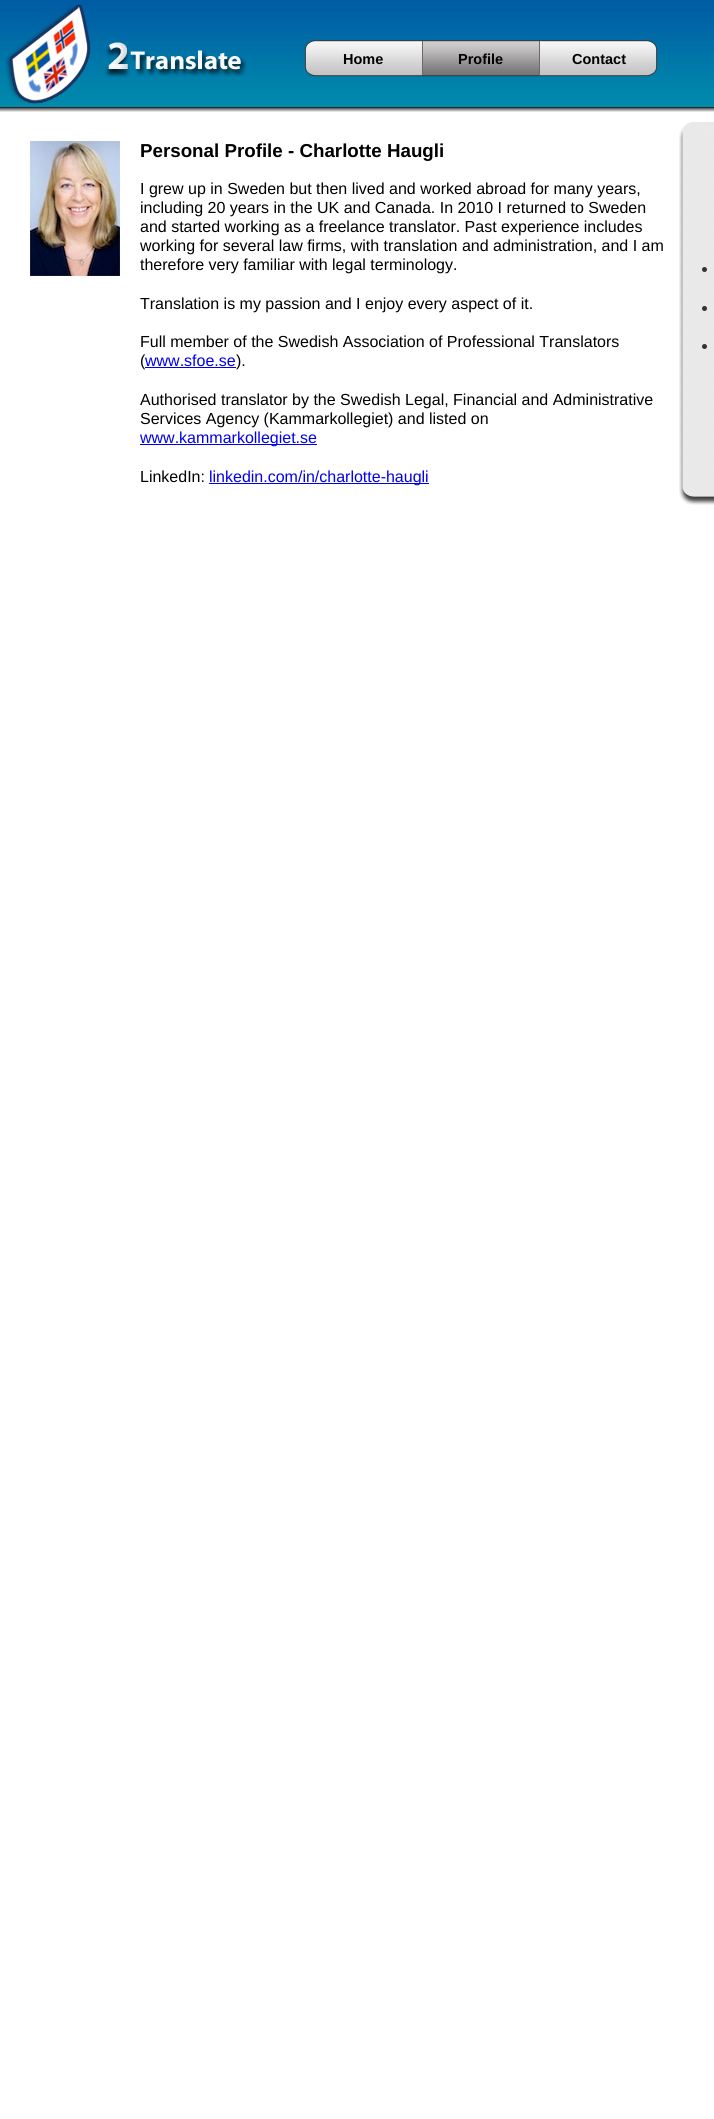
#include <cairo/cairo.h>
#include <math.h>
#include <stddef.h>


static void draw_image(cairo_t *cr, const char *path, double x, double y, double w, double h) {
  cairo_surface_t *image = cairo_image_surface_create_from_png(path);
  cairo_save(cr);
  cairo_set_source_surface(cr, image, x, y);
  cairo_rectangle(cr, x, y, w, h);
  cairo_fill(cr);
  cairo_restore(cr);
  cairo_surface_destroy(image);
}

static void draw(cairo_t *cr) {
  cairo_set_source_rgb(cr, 1, 1, 1);
  cairo_paint(cr);
  draw_image(cr, "images/1.png", 0, 0, 714, 112);
  draw_image(cr, "images/2.png", 5, 4, 242, 100);
  draw_image(cr, "images/3.png", 304, 40, 118, 37);
  draw_image(cr, "images/4.png", 422, 40, 117, 37);
  draw_image(cr, "images/5.png", 539, 40, 119, 37);
  draw_image(cr, "images/6.png", 30, 141, 90, 135);
  cairo_set_source_rgb(cr, 0, 0, 238 / 255.0);
  cairo_rectangle(cr, 140, 444, 177, 1);
  cairo_fill(cr);
  cairo_rectangle(cr, 209, 483, 220, 1);
  cairo_fill(cr);
  draw_image(cr, "images/7.png", 679, 122, 35, 16);
  draw_image(cr, "images/8.png", 679, 138, 35, 344);
  cairo_set_source_rgb(cr, 51 / 255.0, 51 / 255.0, 51 / 255.0);
  cairo_arc(cr, 704.5, 269.5, 2.5, 0, 2 * M_PI);
  cairo_fill(cr);
  cairo_arc(cr, 704.5, 308.5, 2.5, 0, 2 * M_PI);
  cairo_fill(cr);
  cairo_arc(cr, 704.5, 346.5, 2.5, 0, 2 * M_PI);
  cairo_fill(cr);
  draw_image(cr, "images/9.png", 679, 482, 35, 23);
  cairo_select_font_face(cr, "Liberation Sans", CAIRO_FONT_SLANT_NORMAL, CAIRO_FONT_WEIGHT_BOLD);
  cairo_set_font_size(cr, 14.5);
  cairo_set_source_rgb(cr, 0, 0, 0);
  cairo_move_to(cr, 343, 64);
  cairo_show_text(cr, "Home");
  cairo_move_to(cr, 458, 64);
  cairo_show_text(cr, "Profile");
  cairo_move_to(cr, 572, 64);
  cairo_show_text(cr, "Contact");
  cairo_set_font_size(cr, 18.75);
  cairo_move_to(cr, 140, 157);
  cairo_show_text(cr, "Personal Profile - Charlotte Haugli");
  cairo_select_font_face(cr, "Liberation Sans", CAIRO_FONT_SLANT_NORMAL, CAIRO_FONT_WEIGHT_NORMAL);
  cairo_set_font_size(cr, 16);
  cairo_move_to(cr, 140, 194);
  cairo_show_text(cr, "I grew up in Sweden but then lived and worked abroad for many years,");
  cairo_move_to(cr, 140, 213);
  cairo_show_text(cr, "including 20 years in the UK and Canada. In 2010 I returned to Sweden");
  cairo_move_to(cr, 140, 232);
  cairo_show_text(cr, "and started working as a freelance translator. Past experience includes");
  cairo_move_to(cr, 140, 251);
  cairo_show_text(cr, "working for several law firms, with translation and administration, and I am");
  cairo_move_to(cr, 140, 270);
  cairo_show_text(cr, "therefore very familiar with legal terminology.");
  cairo_move_to(cr, 140, 309);
  cairo_show_text(cr, "Translation is my passion and I enjoy every aspect of it.");
  cairo_move_to(cr, 140, 347);
  cairo_show_text(cr, "Full member of the Swedish Association of Professional Translators");
  cairo_move_to(cr, 140, 366);
  cairo_show_text(cr, "(");
  cairo_set_source_rgb(cr, 0, 0, 238 / 255.0);
  cairo_move_to(cr, 145, 366);
  cairo_show_text(cr, "www.sfoe.se");
  cairo_rectangle(cr, 145, 367, 91, 1);
  cairo_fill(cr);
  cairo_set_source_rgb(cr, 0, 0, 0);
  cairo_move_to(cr, 236, 366);
  cairo_show_text(cr, ").");
  cairo_move_to(cr, 140, 405);
  cairo_show_text(cr, "Authorised translator by the Swedish Legal, Financial and Administrative");
  cairo_move_to(cr, 140, 424);
  cairo_show_text(cr, "Services Agency (Kammarkollegiet) and listed on");
  cairo_set_source_rgb(cr, 0, 0, 238 / 255.0);
  cairo_move_to(cr, 140, 443);
  cairo_show_text(cr, "www.kammarkollegiet.se");
  cairo_set_source_rgb(cr, 0, 0, 0);
  cairo_move_to(cr, 140, 482);
  cairo_show_text(cr, "LinkedIn:");
  cairo_set_source_rgb(cr, 0, 0, 238 / 255.0);
  cairo_move_to(cr, 209, 482);
  cairo_show_text(cr, "linkedin.com/in/charlotte-haugli");
}

int main(void) {
  cairo_surface_t *surface = cairo_image_surface_create(CAIRO_FORMAT_RGB24, 714, 2119);
  cairo_t *cr = cairo_create(surface);
  cairo_font_options_t *options = cairo_font_options_create();
  cairo_font_options_set_hint_metrics(options, CAIRO_HINT_METRICS_OFF);
  cairo_font_options_set_hint_style(options, CAIRO_HINT_STYLE_NONE);
  cairo_set_font_options(cr, options);
  cairo_set_miter_limit(cr, 4);
  draw(cr);
  cairo_surface_write_to_png(surface, "out.png");
  cairo_font_options_destroy(options);
  cairo_destroy(cr);
  cairo_surface_destroy(surface);
  return 0;
}
